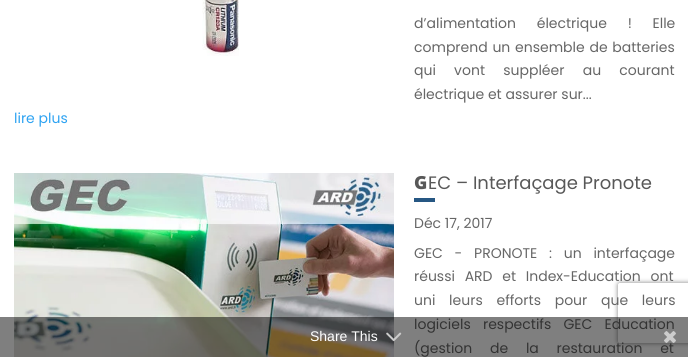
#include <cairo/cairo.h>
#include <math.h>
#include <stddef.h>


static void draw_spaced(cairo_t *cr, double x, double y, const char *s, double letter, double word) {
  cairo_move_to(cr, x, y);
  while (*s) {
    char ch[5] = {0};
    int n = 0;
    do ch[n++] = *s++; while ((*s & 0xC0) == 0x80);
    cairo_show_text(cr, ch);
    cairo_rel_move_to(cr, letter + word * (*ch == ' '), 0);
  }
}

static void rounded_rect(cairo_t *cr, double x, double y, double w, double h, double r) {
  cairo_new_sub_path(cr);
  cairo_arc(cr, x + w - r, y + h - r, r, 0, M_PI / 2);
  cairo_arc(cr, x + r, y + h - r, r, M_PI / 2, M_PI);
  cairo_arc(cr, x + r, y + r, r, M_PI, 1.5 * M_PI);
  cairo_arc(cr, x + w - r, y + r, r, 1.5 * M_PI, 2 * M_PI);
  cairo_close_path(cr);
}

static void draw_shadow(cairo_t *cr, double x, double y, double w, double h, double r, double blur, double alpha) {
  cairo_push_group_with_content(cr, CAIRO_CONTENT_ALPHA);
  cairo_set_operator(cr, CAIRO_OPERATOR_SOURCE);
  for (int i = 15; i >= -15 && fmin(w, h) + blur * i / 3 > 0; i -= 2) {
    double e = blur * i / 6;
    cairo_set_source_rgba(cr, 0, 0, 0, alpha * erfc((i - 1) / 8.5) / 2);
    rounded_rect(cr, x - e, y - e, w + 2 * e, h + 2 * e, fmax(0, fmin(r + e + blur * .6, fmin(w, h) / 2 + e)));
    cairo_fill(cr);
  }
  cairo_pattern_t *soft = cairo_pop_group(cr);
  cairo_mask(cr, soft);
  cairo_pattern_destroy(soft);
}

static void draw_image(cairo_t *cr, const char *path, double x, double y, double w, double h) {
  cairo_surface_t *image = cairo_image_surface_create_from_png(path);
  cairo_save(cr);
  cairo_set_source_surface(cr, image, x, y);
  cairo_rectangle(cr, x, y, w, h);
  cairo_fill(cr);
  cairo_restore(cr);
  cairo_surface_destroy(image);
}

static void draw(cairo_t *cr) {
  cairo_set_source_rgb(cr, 1, 1, 1);
  cairo_paint(cr);
  draw_image(cr, "images/1.png", 202, 0, 37, 56);
  draw_image(cr, "images/2.png", 14, 173, 380, 184);
  cairo_set_source_rgb(cr, 38 / 255.0, 87 / 255.0, 131 / 255.0);
  cairo_rectangle(cr, 414, 198, 21, 4);
  cairo_fill(cr);
  cairo_save(cr);
  cairo_set_fill_rule(cr, CAIRO_FILL_RULE_EVEN_ODD);
  cairo_new_path(cr);
  cairo_move_to(cr, 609, 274);
  cairo_line_to(cr, 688, 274);
  cairo_line_to(cr, 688, 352);
  cairo_line_to(cr, 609, 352);
  cairo_close_path(cr);
  cairo_move_to(cr, 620, 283);
  cairo_line_to(cr, 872, 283);
  cairo_curve_to(cr, 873, 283, 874, 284, 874, 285);
  cairo_line_to(cr, 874, 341);
  cairo_curve_to(cr, 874, 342, 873, 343, 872, 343);
  cairo_line_to(cr, 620, 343);
  cairo_curve_to(cr, 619, 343, 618, 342, 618, 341);
  cairo_line_to(cr, 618, 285);
  cairo_curve_to(cr, 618, 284, 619, 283, 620, 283);
  cairo_close_path(cr);
  cairo_clip(cr);
  cairo_set_source_rgb(cr, 128 / 255.0, 128 / 255.0, 128 / 255.0);
  draw_shadow(cr, 618, 283, 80, 60, 2, 2.5, 1);
  cairo_restore(cr);
  cairo_select_font_face(cr, "Poppins", CAIRO_FONT_SLANT_NORMAL, CAIRO_FONT_WEIGHT_NORMAL);
  cairo_set_font_size(cr, 14);
  cairo_set_source_rgb(cr, 102 / 255.0, 102 / 255.0, 102 / 255.0);
  draw_spaced(cr, 414, 28, "d’alimentation électrique ! Elle", 0, 17);
  draw_spaced(cr, 414, 52, "comprend un ensemble de batteries", 0, 1);
  draw_spaced(cr, 414, 75, "qui vont suppléer au courant", 0, 14.5);
  cairo_move_to(cr, 414, 99);
  cairo_show_text(cr, "électrique et assurer sur...");
  cairo_set_source_rgb(cr, 46 / 255.0, 163 / 255.0, 242 / 255.0);
  cairo_move_to(cr, 14, 123);
  cairo_show_text(cr, "lire plus");
  cairo_select_font_face(cr, "Noto Sans Black", CAIRO_FONT_SLANT_NORMAL, CAIRO_FONT_WEIGHT_NORMAL);
  cairo_set_font_size(cr, 18);
  cairo_set_source_rgb(cr, 88 / 255.0, 88 / 255.0, 88 / 255.0);
  cairo_move_to(cr, 414, 189);
  cairo_show_text(cr, "G");
  cairo_select_font_face(cr, "Poppins", CAIRO_FONT_SLANT_NORMAL, CAIRO_FONT_WEIGHT_NORMAL);
  cairo_move_to(cr, 428, 189);
  cairo_show_text(cr, "EC – Interfaçage Pronote");
  cairo_set_font_size(cr, 14);
  cairo_set_source_rgb(cr, 102 / 255.0, 102 / 255.0, 102 / 255.0);
  cairo_move_to(cr, 414, 228);
  cairo_show_text(cr, "Déc 17, 2017");
  draw_spaced(cr, 414, 258, "GEC - PRONOTE : un interfaçage", 0, 8);
  draw_spaced(cr, 414, 281, "réussi ARD et Index-Education ont", 0, 6);
  draw_spaced(cr, 414, 305, "uni leurs efforts pour que leurs", 0, 10);
  draw_spaced(cr, 414, 329, "logiciels respectifs GEC Education", 0, 8.5);
  draw_spaced(cr, 414, 353, "(gestion de la restauration et", 0, 14);
  cairo_set_source_rgba(cr, 0, 0, 0, 0.5);
  cairo_rectangle(cr, 0, 317, 688, 40);
  cairo_fill(cr);
  cairo_select_font_face(cr, "Liberation Sans", CAIRO_FONT_SLANT_NORMAL, CAIRO_FONT_WEIGHT_NORMAL);
  cairo_set_source_rgb(cr, 1, 1, 1);
  cairo_move_to(cr, 310, 341);
  cairo_show_text(cr, "Share This");
  draw_image(cr, "images/3.png", 386, 332, 16, 10);
  draw_image(cr, "images/4.png", 664, 331, 12, 12);
}

int main(void) {
  cairo_surface_t *surface = cairo_image_surface_create(CAIRO_FORMAT_RGB24, 688, 357);
  cairo_t *cr = cairo_create(surface);
  cairo_font_options_t *options = cairo_font_options_create();
  cairo_font_options_set_hint_metrics(options, CAIRO_HINT_METRICS_OFF);
  cairo_font_options_set_hint_style(options, CAIRO_HINT_STYLE_NONE);
  cairo_set_font_options(cr, options);
  cairo_set_miter_limit(cr, 4);
  draw(cr);
  cairo_surface_write_to_png(surface, "out.png");
  cairo_font_options_destroy(options);
  cairo_destroy(cr);
  cairo_surface_destroy(surface);
  return 0;
}
